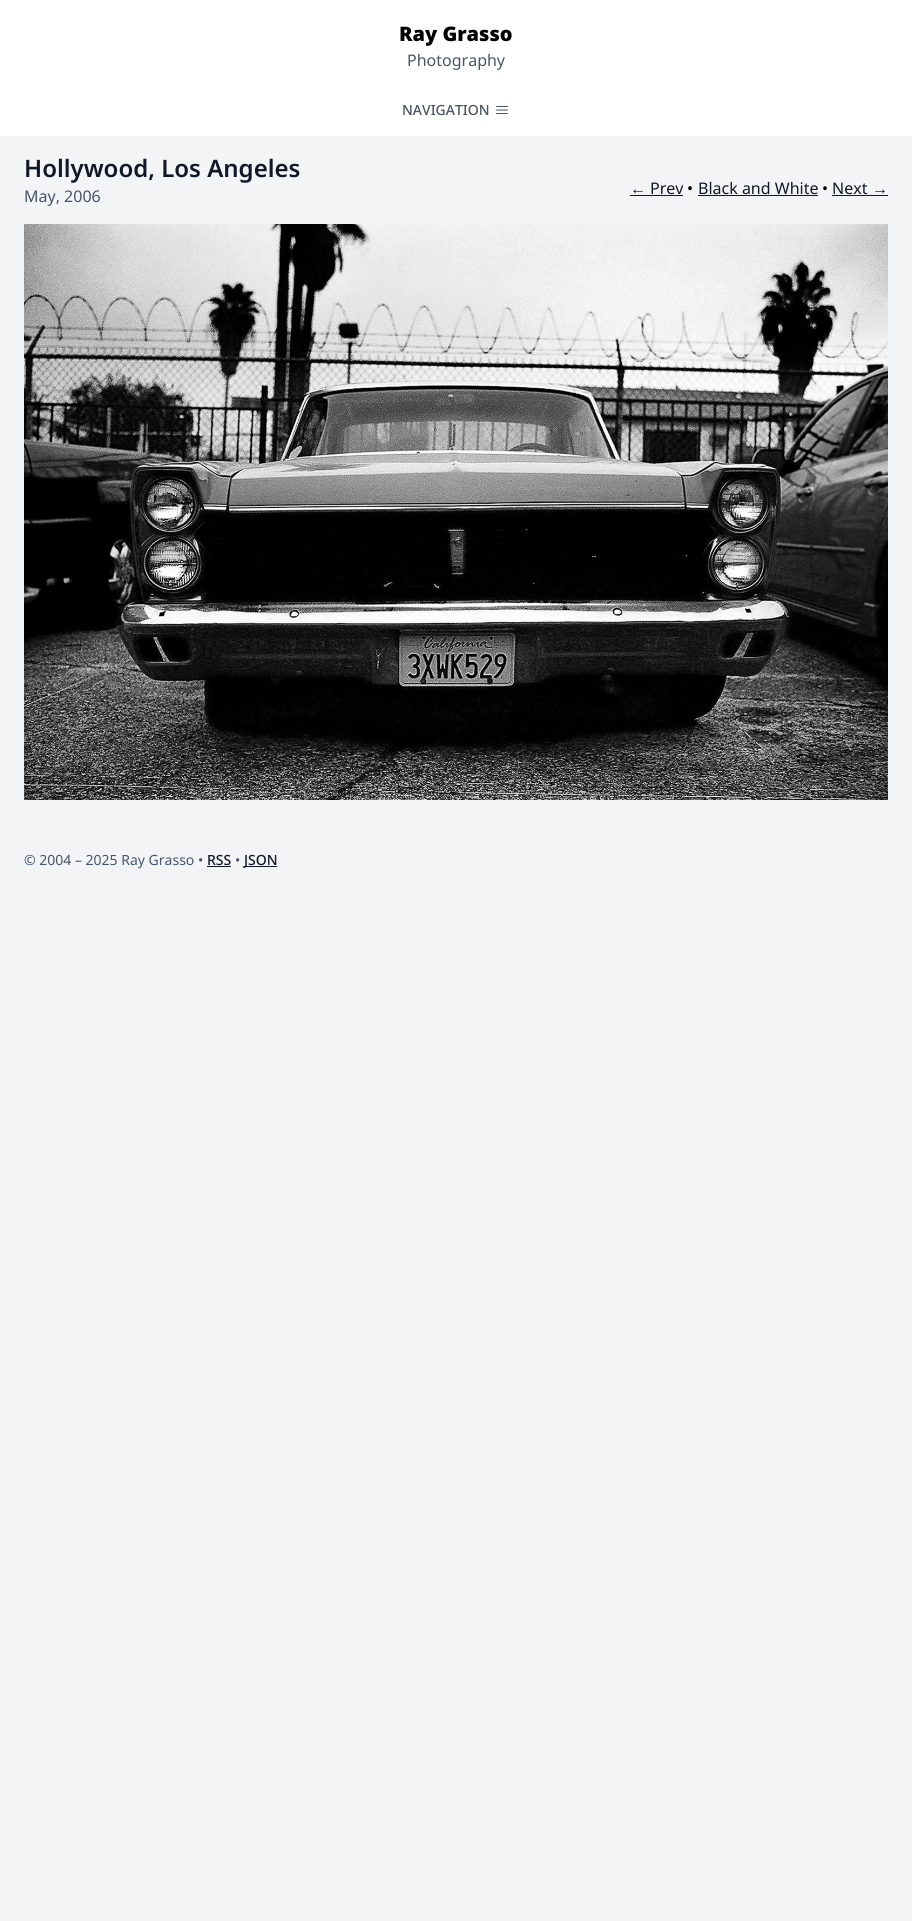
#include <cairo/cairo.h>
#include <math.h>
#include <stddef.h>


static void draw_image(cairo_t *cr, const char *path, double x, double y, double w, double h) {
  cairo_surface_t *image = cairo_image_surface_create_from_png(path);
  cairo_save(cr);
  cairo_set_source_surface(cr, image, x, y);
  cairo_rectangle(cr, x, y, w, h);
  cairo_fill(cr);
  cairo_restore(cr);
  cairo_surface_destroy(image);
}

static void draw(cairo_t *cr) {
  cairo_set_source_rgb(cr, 243 / 255.0, 244 / 255.0, 246 / 255.0);
  cairo_paint(cr);
  cairo_set_source_rgb(cr, 1, 1, 1);
  cairo_rectangle(cr, 0, 0, 912, 136);
  cairo_fill(cr);
  draw_image(cr, "images/1.png", 496, 106, 12, 8);
  cairo_set_source_rgb(cr, 17 / 255.0, 24 / 255.0, 39 / 255.0);
  cairo_rectangle(cr, 698, 195, 120, 1);
  cairo_fill(cr);
  cairo_rectangle(cr, 630, 195, 53, 1);
  cairo_fill(cr);
  cairo_rectangle(cr, 832, 195, 56, 1);
  cairo_fill(cr);
  draw_image(cr, "images/2.png", 24, 224, 864, 576);
  cairo_rectangle(cr, 207, 866, 24, 1);
  cairo_fill(cr);
  cairo_rectangle(cr, 244, 866, 33, 1);
  cairo_fill(cr);
  cairo_select_font_face(cr, "Noto Sans Black", CAIRO_FONT_SLANT_NORMAL, CAIRO_FONT_WEIGHT_NORMAL);
  cairo_set_font_size(cr, 20);
  cairo_set_source_rgb(cr, 0, 0, 0);
  cairo_move_to(cr, 399, 41);
  cairo_show_text(cr, "Ray Grasso");
  cairo_select_font_face(cr, "Noto Sans", CAIRO_FONT_SLANT_NORMAL, CAIRO_FONT_WEIGHT_NORMAL);
  cairo_set_font_size(cr, 16);
  cairo_set_source_rgb(cr, 71 / 255.0, 85 / 255.0, 105 / 255.0);
  cairo_move_to(cr, 407, 66);
  cairo_show_text(cr, "Photography");
  cairo_select_font_face(cr, "Noto Sans Medium", CAIRO_FONT_SLANT_NORMAL, CAIRO_FONT_WEIGHT_NORMAL);
  cairo_set_font_size(cr, 14);
  cairo_set_source_rgb(cr, 75 / 255.0, 85 / 255.0, 99 / 255.0);
  cairo_move_to(cr, 402, 115);
  cairo_show_text(cr, "NAVIGATION");
  cairo_select_font_face(cr, "Noto Sans SemiBold", CAIRO_FONT_SLANT_NORMAL, CAIRO_FONT_WEIGHT_NORMAL);
  cairo_set_font_size(cr, 24);
  cairo_set_source_rgb(cr, 17 / 255.0, 24 / 255.0, 39 / 255.0);
  cairo_move_to(cr, 24, 177);
  cairo_show_text(cr, "Hollywood, Los Angeles");
  cairo_select_font_face(cr, "Noto Sans", CAIRO_FONT_SLANT_NORMAL, CAIRO_FONT_WEIGHT_NORMAL);
  cairo_set_font_size(cr, 16);
  cairo_set_source_rgb(cr, 71 / 255.0, 85 / 255.0, 105 / 255.0);
  cairo_move_to(cr, 24, 202);
  cairo_show_text(cr, "May, 2006");
  cairo_set_source_rgb(cr, 17 / 255.0, 24 / 255.0, 39 / 255.0);
  cairo_move_to(cr, 650, 194);
  cairo_show_text(cr, "Prev");
  cairo_set_source_rgb(cr, 0, 0, 0);
  cairo_move_to(cr, 687, 194);
  cairo_show_text(cr, "•");
  cairo_set_source_rgb(cr, 17 / 255.0, 24 / 255.0, 39 / 255.0);
  cairo_move_to(cr, 698, 194);
  cairo_show_text(cr, "Black and White");
  cairo_set_source_rgb(cr, 0, 0, 0);
  cairo_move_to(cr, 822, 194);
  cairo_show_text(cr, "•");
  cairo_set_source_rgb(cr, 17 / 255.0, 24 / 255.0, 39 / 255.0);
  cairo_move_to(cr, 832, 194);
  cairo_show_text(cr, "Next");
  cairo_select_font_face(cr, "Liberation Sans", CAIRO_FONT_SLANT_NORMAL, CAIRO_FONT_WEIGHT_NORMAL);
  cairo_move_to(cr, 630, 194);
  cairo_show_text(cr, "←");
  cairo_move_to(cr, 872, 194);
  cairo_show_text(cr, "→");
  cairo_select_font_face(cr, "Noto Sans", CAIRO_FONT_SLANT_NORMAL, CAIRO_FONT_WEIGHT_NORMAL);
  cairo_set_font_size(cr, 14);
  cairo_set_source_rgb(cr, 71 / 255.0, 85 / 255.0, 105 / 255.0);
  cairo_move_to(cr, 24, 865);
  cairo_show_text(cr, "© 2004 – 2025 Ray Grasso •");
  cairo_select_font_face(cr, "Noto Sans Medium", CAIRO_FONT_SLANT_NORMAL, CAIRO_FONT_WEIGHT_NORMAL);
  cairo_set_source_rgb(cr, 17 / 255.0, 24 / 255.0, 39 / 255.0);
  cairo_move_to(cr, 207, 865);
  cairo_show_text(cr, "RSS");
  cairo_select_font_face(cr, "Noto Sans", CAIRO_FONT_SLANT_NORMAL, CAIRO_FONT_WEIGHT_NORMAL);
  cairo_set_source_rgb(cr, 71 / 255.0, 85 / 255.0, 105 / 255.0);
  cairo_move_to(cr, 235, 865);
  cairo_show_text(cr, "•");
  cairo_select_font_face(cr, "Noto Sans Medium", CAIRO_FONT_SLANT_NORMAL, CAIRO_FONT_WEIGHT_NORMAL);
  cairo_set_source_rgb(cr, 17 / 255.0, 24 / 255.0, 39 / 255.0);
  cairo_move_to(cr, 244, 865);
  cairo_show_text(cr, "JSON");
}

int main(void) {
  cairo_surface_t *surface = cairo_image_surface_create(CAIRO_FORMAT_RGB24, 912, 1921);
  cairo_t *cr = cairo_create(surface);
  cairo_font_options_t *options = cairo_font_options_create();
  cairo_font_options_set_hint_metrics(options, CAIRO_HINT_METRICS_OFF);
  cairo_font_options_set_hint_style(options, CAIRO_HINT_STYLE_NONE);
  cairo_set_font_options(cr, options);
  cairo_set_miter_limit(cr, 4);
  draw(cr);
  cairo_surface_write_to_png(surface, "out.png");
  cairo_font_options_destroy(options);
  cairo_destroy(cr);
  cairo_surface_destroy(surface);
  return 0;
}
